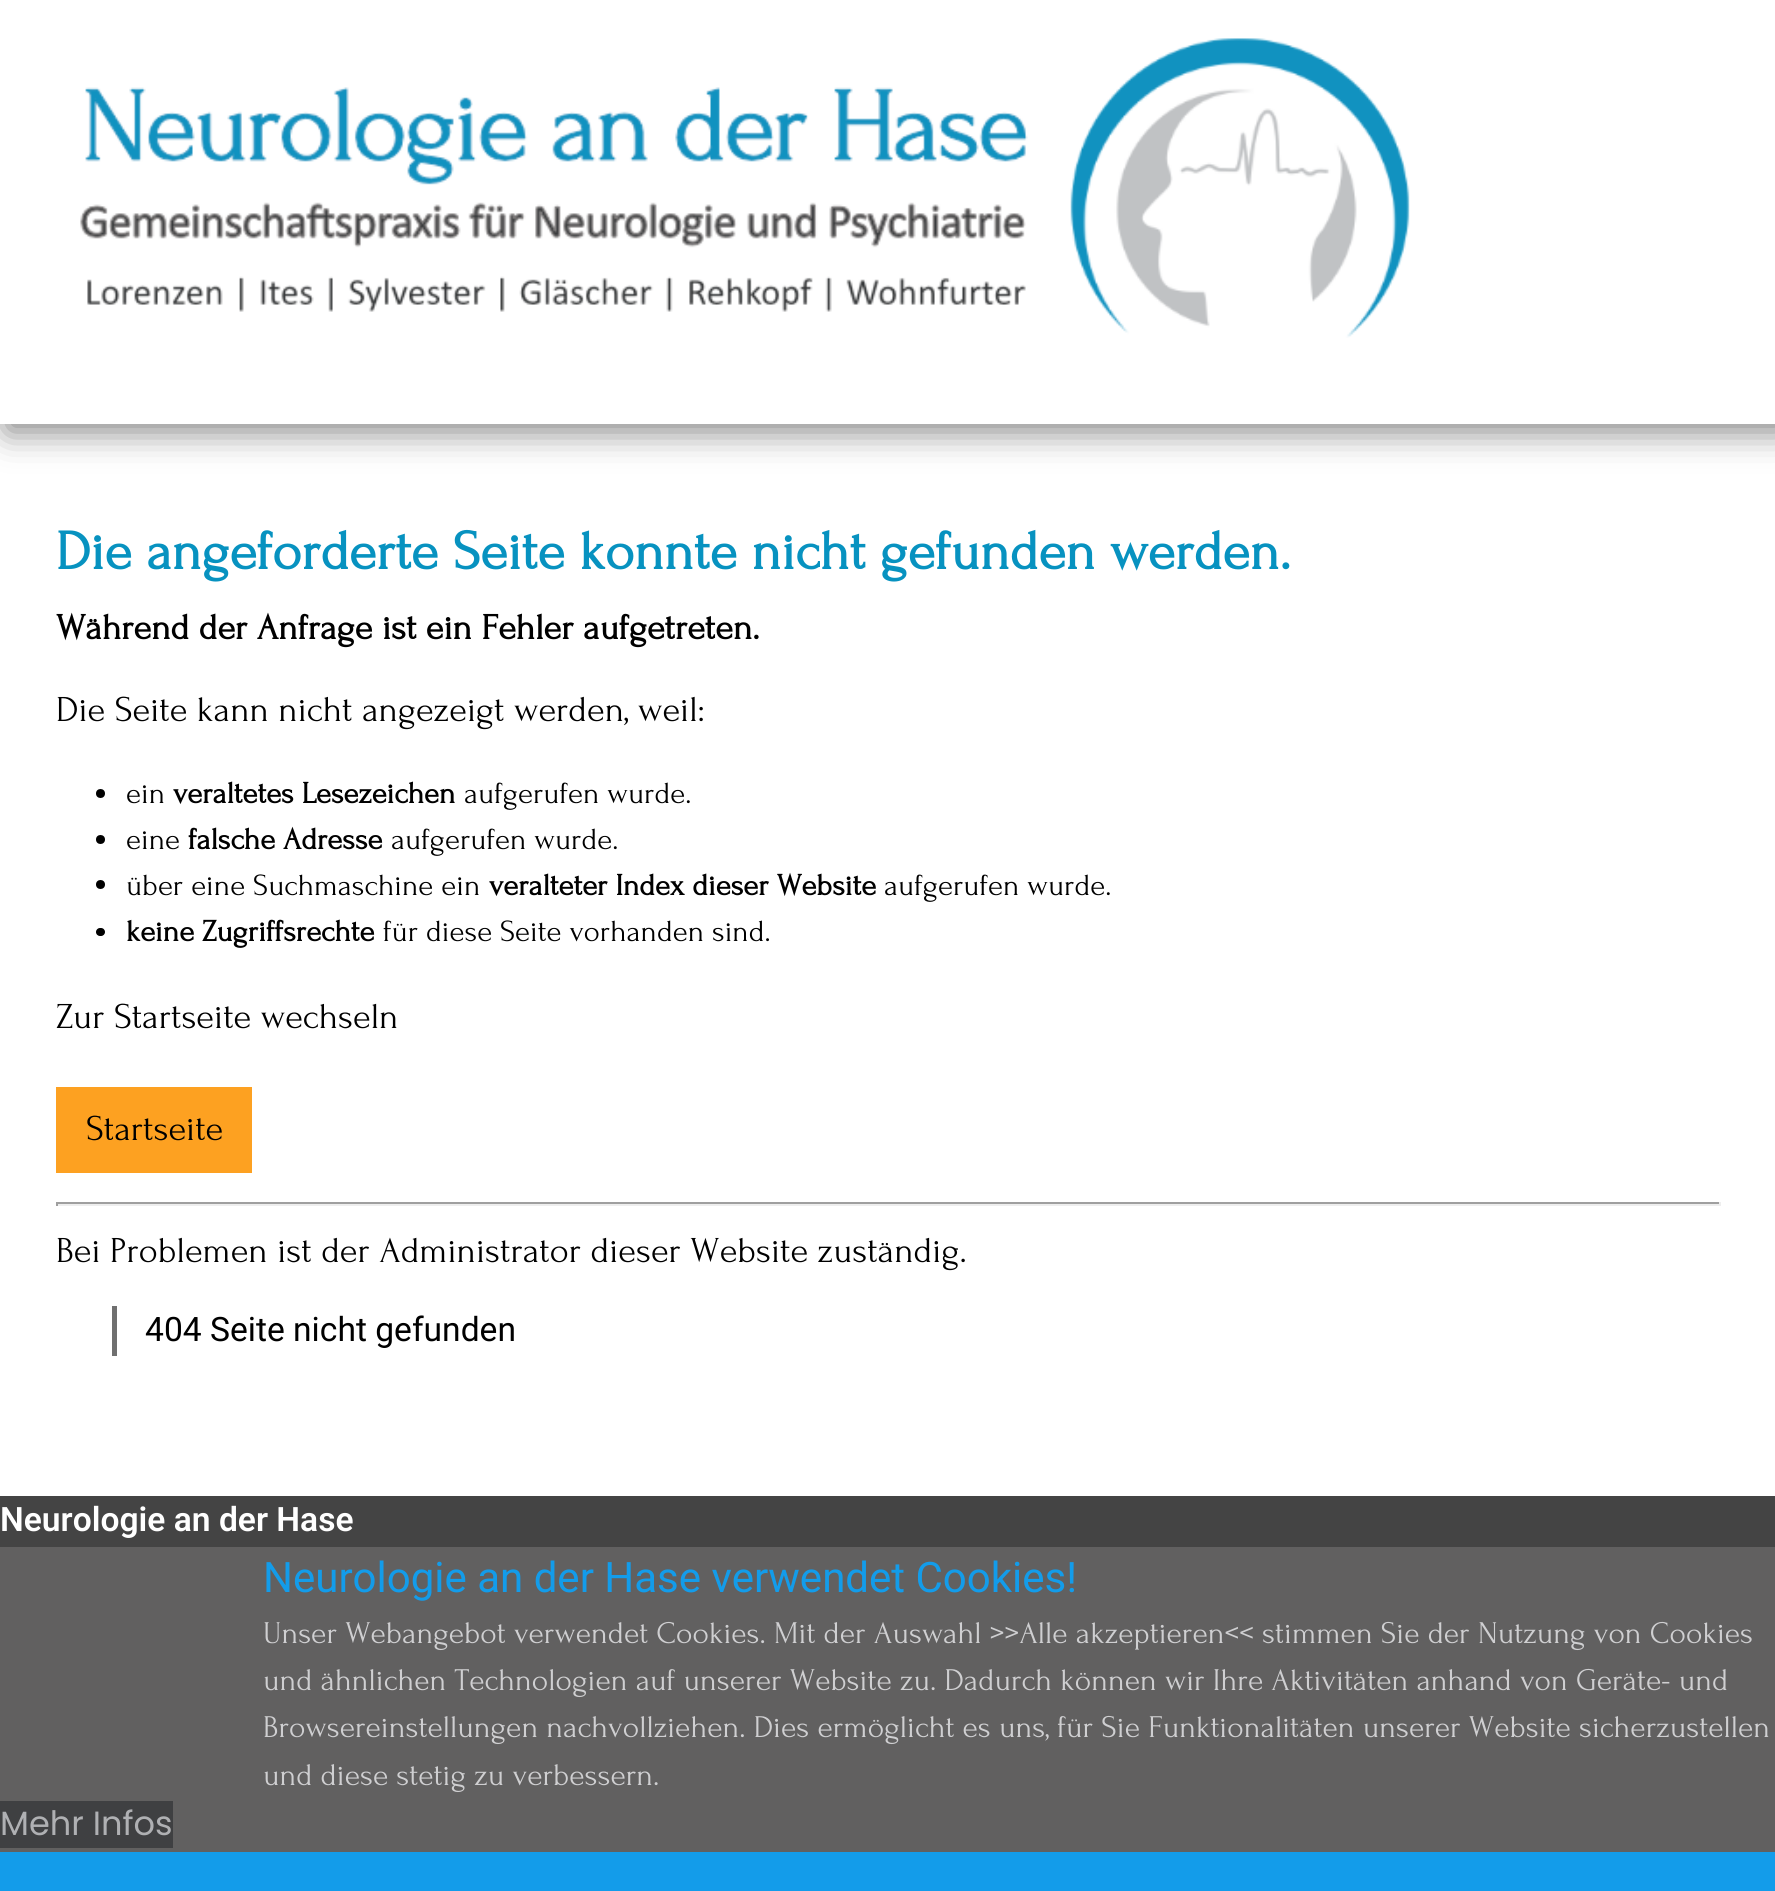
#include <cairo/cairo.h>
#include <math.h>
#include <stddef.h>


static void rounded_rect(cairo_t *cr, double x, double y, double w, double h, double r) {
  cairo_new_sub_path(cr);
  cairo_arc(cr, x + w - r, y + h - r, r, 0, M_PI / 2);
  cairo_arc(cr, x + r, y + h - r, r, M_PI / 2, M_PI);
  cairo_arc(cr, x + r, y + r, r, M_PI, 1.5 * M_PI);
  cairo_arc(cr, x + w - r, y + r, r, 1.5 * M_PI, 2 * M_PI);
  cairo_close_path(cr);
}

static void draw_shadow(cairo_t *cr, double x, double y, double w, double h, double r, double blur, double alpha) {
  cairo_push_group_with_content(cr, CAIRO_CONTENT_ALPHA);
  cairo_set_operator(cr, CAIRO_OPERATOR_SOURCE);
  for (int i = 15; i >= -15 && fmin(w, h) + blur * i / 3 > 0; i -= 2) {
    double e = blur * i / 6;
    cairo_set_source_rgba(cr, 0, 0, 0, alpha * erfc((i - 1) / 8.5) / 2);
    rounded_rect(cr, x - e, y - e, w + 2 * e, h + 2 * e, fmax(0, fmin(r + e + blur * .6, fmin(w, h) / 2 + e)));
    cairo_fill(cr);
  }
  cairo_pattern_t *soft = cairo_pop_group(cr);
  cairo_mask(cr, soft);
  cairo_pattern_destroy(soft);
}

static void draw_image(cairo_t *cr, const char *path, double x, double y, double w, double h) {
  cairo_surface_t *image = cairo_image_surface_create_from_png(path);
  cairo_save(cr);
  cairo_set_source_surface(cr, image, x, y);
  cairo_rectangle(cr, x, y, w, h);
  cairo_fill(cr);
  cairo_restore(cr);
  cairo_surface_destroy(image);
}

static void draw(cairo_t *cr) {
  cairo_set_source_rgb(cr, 1, 1, 1);
  cairo_paint(cr);
  cairo_set_source_rgb(cr, 128 / 255.0, 128 / 255.0, 128 / 255.0);
  draw_shadow(cr, 7, 7, 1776, 424, 0, 17.5, 1);
  cairo_set_source_rgb(cr, 1, 1, 1);
  cairo_rectangle(cr, 0, 0, 1775, 424);
  cairo_fill(cr);
  draw_image(cr, "images/1.png", 80, 38, 1330, 300);
  cairo_set_source_rgb(cr, 0, 0, 0);
  cairo_arc(cr, 100.5, 793.5, 4.5, 0, 2 * M_PI);
  cairo_fill(cr);
  cairo_arc(cr, 100.5, 839.5, 4.5, 0, 2 * M_PI);
  cairo_fill(cr);
  cairo_arc(cr, 100.5, 884.5, 4.5, 0, 2 * M_PI);
  cairo_fill(cr);
  rounded_rect(cr, 96, 928, 9, 8, 4);
  cairo_fill(cr);
  cairo_set_source_rgb(cr, 253 / 255.0, 161 / 255.0, 33 / 255.0);
  cairo_rectangle(cr, 56, 1087, 196, 86);
  cairo_fill(cr);
  cairo_set_source_rgb(cr, 159 / 255.0, 159 / 255.0, 159 / 255.0);
  cairo_rectangle(cr, 56, 1202, 1664, 2);
  cairo_fill(cr);
  cairo_set_source_rgb(cr, 238 / 255.0, 238 / 255.0, 238 / 255.0);
  cairo_rectangle(cr, 1719, 1202, 2, 4);
  cairo_fill(cr);
  cairo_rectangle(cr, 56, 1204, 1664, 2);
  cairo_fill(cr);
  cairo_set_source_rgb(cr, 159 / 255.0, 159 / 255.0, 159 / 255.0);
  cairo_rectangle(cr, 56, 1202, 2, 4);
  cairo_fill(cr);
  cairo_set_source_rgb(cr, 112 / 255.0, 112 / 255.0, 112 / 255.0);
  cairo_rectangle(cr, 112, 1306, 5, 50);
  cairo_fill(cr);
  cairo_set_source_rgb(cr, 68 / 255.0, 68 / 255.0, 68 / 255.0);
  cairo_rectangle(cr, 0, 1496, 1775, 51);
  cairo_fill(cr);
  cairo_set_source_rgb(cr, 97 / 255.0, 96 / 255.0, 96 / 255.0);
  cairo_rectangle(cr, 0, 1547, 1775, 305);
  cairo_fill(cr);
  cairo_set_source_rgb(cr, 63 / 255.0, 64 / 255.0, 66 / 255.0);
  cairo_rectangle(cr, 0, 1801, 173, 47);
  cairo_fill(cr);
  cairo_set_source_rgb(cr, 19 / 255.0, 156 / 255.0, 234 / 255.0);
  cairo_rectangle(cr, 0, 1852, 1775, 39);
  cairo_fill(cr);
  cairo_select_font_face(cr, "Forum", CAIRO_FONT_SLANT_NORMAL, CAIRO_FONT_WEIGHT_BOLD);
  cairo_set_font_size(cr, 56);
  cairo_set_source_rgb(cr, 7 / 255.0, 146 / 255.0, 192 / 255.0);
  cairo_move_to(cr, 56, 569);
  cairo_show_text(cr, "Die angeforderte Seite konnte nicht gefunden werden.");
  cairo_set_font_size(cr, 36.4);
  cairo_set_source_rgb(cr, 0, 0, 0);
  cairo_move_to(cr, 56, 639);
  cairo_show_text(cr, "Während der Anfrage ist ein Fehler aufgetreten.");
  cairo_select_font_face(cr, "Forum", CAIRO_FONT_SLANT_NORMAL, CAIRO_FONT_WEIGHT_NORMAL);
  cairo_move_to(cr, 56, 721);
  cairo_show_text(cr, "Die Seite kann nicht angezeigt werden, weil:");
  cairo_set_font_size(cr, 30.75);
  cairo_move_to(cr, 126, 803);
  cairo_show_text(cr, "ein");
  cairo_select_font_face(cr, "Forum", CAIRO_FONT_SLANT_NORMAL, CAIRO_FONT_WEIGHT_BOLD);
  cairo_move_to(cr, 173, 803);
  cairo_show_text(cr, "veraltetes Lesezeichen");
  cairo_select_font_face(cr, "Forum", CAIRO_FONT_SLANT_NORMAL, CAIRO_FONT_WEIGHT_NORMAL);
  cairo_move_to(cr, 464, 803);
  cairo_show_text(cr, "aufgerufen wurde.");
  cairo_move_to(cr, 126, 849);
  cairo_show_text(cr, "eine");
  cairo_select_font_face(cr, "Forum", CAIRO_FONT_SLANT_NORMAL, CAIRO_FONT_WEIGHT_BOLD);
  cairo_move_to(cr, 188, 849);
  cairo_show_text(cr, "falsche Adresse");
  cairo_select_font_face(cr, "Forum", CAIRO_FONT_SLANT_NORMAL, CAIRO_FONT_WEIGHT_NORMAL);
  cairo_move_to(cr, 391, 849);
  cairo_show_text(cr, "aufgerufen wurde.");
  cairo_move_to(cr, 126, 895);
  cairo_show_text(cr, "über eine Suchmaschine ein");
  cairo_select_font_face(cr, "Forum", CAIRO_FONT_SLANT_NORMAL, CAIRO_FONT_WEIGHT_BOLD);
  cairo_move_to(cr, 489, 895);
  cairo_show_text(cr, "veralteter Index dieser Website");
  cairo_select_font_face(cr, "Forum", CAIRO_FONT_SLANT_NORMAL, CAIRO_FONT_WEIGHT_NORMAL);
  cairo_move_to(cr, 884, 895);
  cairo_show_text(cr, "aufgerufen wurde.");
  cairo_select_font_face(cr, "Forum", CAIRO_FONT_SLANT_NORMAL, CAIRO_FONT_WEIGHT_BOLD);
  cairo_move_to(cr, 126, 941);
  cairo_show_text(cr, "keine Zugriffsrechte");
  cairo_select_font_face(cr, "Forum", CAIRO_FONT_SLANT_NORMAL, CAIRO_FONT_WEIGHT_NORMAL);
  cairo_move_to(cr, 383, 941);
  cairo_show_text(cr, "für diese Seite vorhanden sind.");
  cairo_set_font_size(cr, 36.4);
  cairo_move_to(cr, 56, 1028);
  cairo_show_text(cr, "Zur Startseite wechseln");
  cairo_move_to(cr, 86, 1140);
  cairo_show_text(cr, "Startseite");
  cairo_move_to(cr, 56, 1262);
  cairo_show_text(cr, "Bei Problemen ist der Administrator dieser Website zuständig.");
  cairo_select_font_face(cr, "Roboto", CAIRO_FONT_SLANT_NORMAL, CAIRO_FONT_WEIGHT_NORMAL);
  cairo_set_font_size(cr, 33.6);
  cairo_move_to(cr, 145, 1341);
  cairo_show_text(cr, "404 Seite nicht gefunden");
  cairo_select_font_face(cr, "Roboto SemiBold", CAIRO_FONT_SLANT_NORMAL, CAIRO_FONT_WEIGHT_NORMAL);
  cairo_set_source_rgb(cr, 1, 1, 1);
  cairo_move_to(cr, 0, 1531);
  cairo_show_text(cr, "Neurologie an der Hase");
  cairo_select_font_face(cr, "Roboto", CAIRO_FONT_SLANT_NORMAL, CAIRO_FONT_WEIGHT_NORMAL);
  cairo_set_font_size(cr, 42);
  cairo_set_source_rgb(cr, 19 / 255.0, 156 / 255.0, 234 / 255.0);
  cairo_move_to(cr, 263, 1592);
  cairo_show_text(cr, "Neurologie an der Hase verwendet Cookies!");
  cairo_select_font_face(cr, "Forum", CAIRO_FONT_SLANT_NORMAL, CAIRO_FONT_WEIGHT_NORMAL);
  cairo_set_font_size(cr, 31.5);
  cairo_set_source_rgb(cr, 207 / 255.0, 207 / 255.0, 209 / 255.0);
  cairo_move_to(cr, 263, 1643);
  cairo_show_text(cr, "Unser Webangebot verwendet Cookies. Mit der Auswahl >>Alle akzeptieren<< stimmen Sie der Nutzung von Cookies");
  cairo_move_to(cr, 263, 1690);
  cairo_show_text(cr, "und ähnlichen Technologien auf unserer Website zu. Dadurch können wir Ihre Aktivitäten anhand von Geräte- und");
  cairo_move_to(cr, 263, 1737);
  cairo_show_text(cr, "Browsereinstellungen nachvollziehen. Dies ermöglicht es uns, für Sie Funktionalitäten unserer Website sicherzustellen");
  cairo_move_to(cr, 263, 1785);
  cairo_show_text(cr, "und diese stetig zu verbessern.");
  cairo_select_font_face(cr, "Poppins", CAIRO_FONT_SLANT_NORMAL, CAIRO_FONT_WEIGHT_NORMAL);
  cairo_set_font_size(cr, 33.6);
  cairo_set_source_rgb(cr, 175 / 255.0, 176 / 255.0, 179 / 255.0);
  cairo_move_to(cr, 0, 1835);
  cairo_show_text(cr, "Mehr Infos");
}

int main(void) {
  cairo_surface_t *surface = cairo_image_surface_create(CAIRO_FORMAT_RGB24, 1775, 1891);
  cairo_t *cr = cairo_create(surface);
  cairo_font_options_t *options = cairo_font_options_create();
  cairo_font_options_set_hint_metrics(options, CAIRO_HINT_METRICS_OFF);
  cairo_font_options_set_hint_style(options, CAIRO_HINT_STYLE_NONE);
  cairo_set_font_options(cr, options);
  cairo_set_miter_limit(cr, 4);
  draw(cr);
  cairo_surface_write_to_png(surface, "out.png");
  cairo_font_options_destroy(options);
  cairo_destroy(cr);
  cairo_surface_destroy(surface);
  return 0;
}
